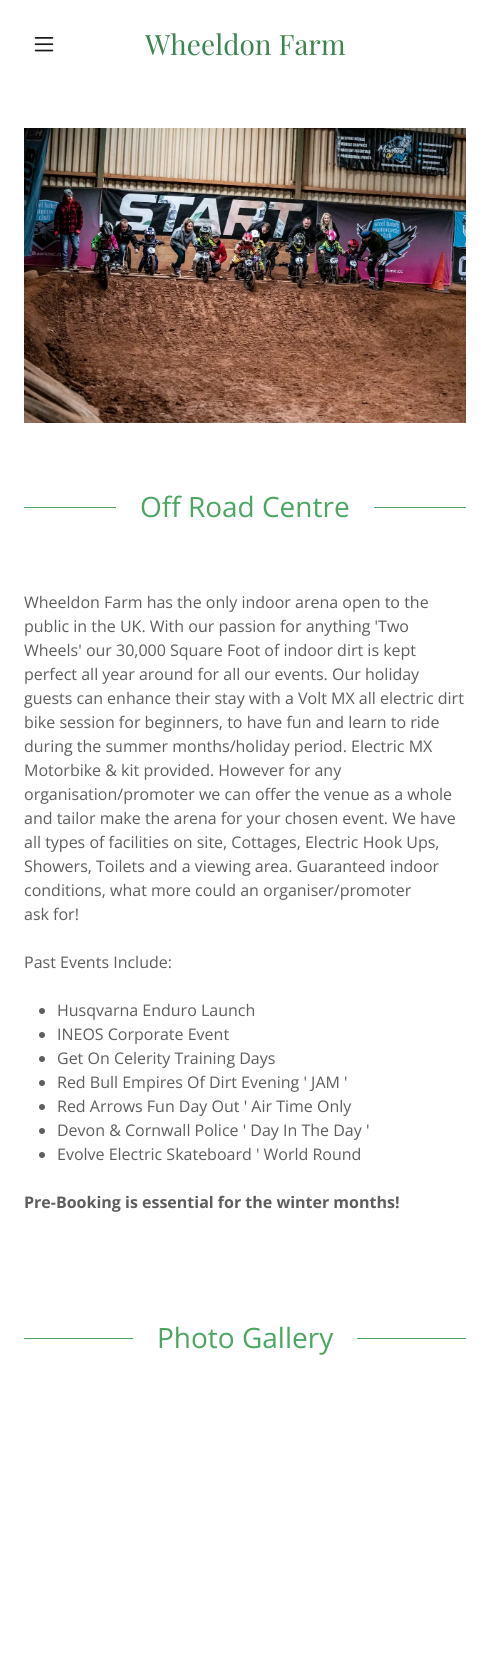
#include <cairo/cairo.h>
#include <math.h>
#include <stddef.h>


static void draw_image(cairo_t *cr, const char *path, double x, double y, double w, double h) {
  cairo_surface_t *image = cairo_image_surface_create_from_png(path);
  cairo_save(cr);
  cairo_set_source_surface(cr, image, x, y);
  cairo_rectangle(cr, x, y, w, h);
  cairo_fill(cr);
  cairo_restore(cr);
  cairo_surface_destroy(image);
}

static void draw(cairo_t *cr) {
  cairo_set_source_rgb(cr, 1, 1, 1);
  cairo_paint(cr);
  draw_image(cr, "images/1.png", 34, 37, 20, 15);
  draw_image(cr, "images/2.png", 24, 128, 442, 295);
  cairo_set_source_rgb(cr, 75 / 255.0, 166 / 255.0, 97 / 255.0);
  cairo_rectangle(cr, 24, 507, 92, 1);
  cairo_fill(cr);
  cairo_rectangle(cr, 374, 507, 92, 1);
  cairo_fill(cr);
  cairo_set_source_rgb(cr, 94 / 255.0, 94 / 255.0, 94 / 255.0);
  cairo_arc(cr, 42, 1011, 3, 0, 2 * M_PI);
  cairo_fill(cr);
  cairo_arc(cr, 42, 1035, 3, 0, 2 * M_PI);
  cairo_fill(cr);
  cairo_arc(cr, 42, 1059, 3, 0, 2 * M_PI);
  cairo_fill(cr);
  cairo_arc(cr, 42, 1083, 3, 0, 2 * M_PI);
  cairo_fill(cr);
  cairo_arc(cr, 42, 1107, 3, 0, 2 * M_PI);
  cairo_fill(cr);
  cairo_arc(cr, 42, 1131, 3, 0, 2 * M_PI);
  cairo_fill(cr);
  cairo_arc(cr, 42, 1155, 3, 0, 2 * M_PI);
  cairo_fill(cr);
  cairo_set_source_rgb(cr, 75 / 255.0, 166 / 255.0, 97 / 255.0);
  cairo_rectangle(cr, 24, 1338, 109, 1);
  cairo_fill(cr);
  cairo_rectangle(cr, 357, 1338, 109, 1);
  cairo_fill(cr);
  cairo_select_font_face(cr, "Playfair Display", CAIRO_FONT_SLANT_NORMAL, CAIRO_FONT_WEIGHT_NORMAL);
  cairo_set_font_size(cr, 28);
  cairo_set_source_rgb(cr, 60 / 255.0, 133 / 255.0, 78 / 255.0);
  cairo_move_to(cr, 145, 55);
  cairo_show_text(cr, "Wheeldon Farm");
  cairo_select_font_face(cr, "Open Sans", CAIRO_FONT_SLANT_NORMAL, CAIRO_FONT_WEIGHT_NORMAL);
  cairo_set_source_rgb(cr, 75 / 255.0, 166 / 255.0, 97 / 255.0);
  cairo_move_to(cr, 140, 517);
  cairo_show_text(cr, "Off Road Centre");
  cairo_set_font_size(cr, 16);
  cairo_set_source_rgb(cr, 94 / 255.0, 94 / 255.0, 94 / 255.0);
  cairo_move_to(cr, 24, 608);
  cairo_show_text(cr, "Wheeldon Farm has the only indoor arena open to the");
  cairo_move_to(cr, 24, 632);
  cairo_show_text(cr, "public in the UK. With our passion for anything 'Two");
  cairo_move_to(cr, 24, 656);
  cairo_show_text(cr, "Wheels' our 30,000 Square Foot of indoor dirt is kept");
  cairo_move_to(cr, 24, 680);
  cairo_show_text(cr, "perfect all year around for all our events. Our holiday");
  cairo_move_to(cr, 24, 704);
  cairo_show_text(cr, "guests can enhance their stay with a Volt MX all electric dirt");
  cairo_move_to(cr, 24, 728);
  cairo_show_text(cr, "bike session for beginners, to have fun and learn to ride");
  cairo_move_to(cr, 24, 752);
  cairo_show_text(cr, "during the summer months/holiday period. Electric MX");
  cairo_move_to(cr, 24, 776);
  cairo_show_text(cr, "Motorbike & kit provided. However for any");
  cairo_move_to(cr, 24, 800);
  cairo_show_text(cr, "organisation/promoter we can offer the venue as a whole");
  cairo_move_to(cr, 24, 824);
  cairo_show_text(cr, "and tailor make the arena for your chosen event. We have");
  cairo_move_to(cr, 24, 848);
  cairo_show_text(cr, "all types of facilities on site, Cottages, Electric Hook Ups,");
  cairo_move_to(cr, 24, 872);
  cairo_show_text(cr, "Showers, Toilets and a viewing area. Guaranteed indoor");
  cairo_move_to(cr, 24, 896);
  cairo_show_text(cr, "conditions, what more could an organiser/promoter");
  cairo_move_to(cr, 24, 920);
  cairo_show_text(cr, "ask for!");
  cairo_move_to(cr, 24, 968);
  cairo_show_text(cr, "Past Events Include:");
  cairo_move_to(cr, 57, 1016);
  cairo_show_text(cr, "Husqvarna Enduro Launch");
  cairo_move_to(cr, 57, 1040);
  cairo_show_text(cr, "INEOS Corporate Event");
  cairo_move_to(cr, 57, 1064);
  cairo_show_text(cr, "Get On Celerity Training Days");
  cairo_move_to(cr, 57, 1088);
  cairo_show_text(cr, "Red Bull Empires Of Dirt Evening ' JAM '");
  cairo_move_to(cr, 57, 1112);
  cairo_show_text(cr, "Red Arrows Fun Day Out ' Air Time Only");
  cairo_move_to(cr, 57, 1136);
  cairo_show_text(cr, "Devon & Cornwall Police ' Day In The Day '");
  cairo_move_to(cr, 57, 1160);
  cairo_show_text(cr, "Evolve Electric Skateboard ' World Round");
  cairo_select_font_face(cr, "Open Sans", CAIRO_FONT_SLANT_NORMAL, CAIRO_FONT_WEIGHT_BOLD);
  cairo_move_to(cr, 24, 1208);
  cairo_show_text(cr, "Pre-Booking is essential for the winter months!");
  cairo_select_font_face(cr, "Open Sans", CAIRO_FONT_SLANT_NORMAL, CAIRO_FONT_WEIGHT_NORMAL);
  cairo_set_font_size(cr, 28);
  cairo_set_source_rgb(cr, 75 / 255.0, 166 / 255.0, 97 / 255.0);
  cairo_move_to(cr, 157, 1348);
  cairo_show_text(cr, "Photo Gallery");
}

int main(void) {
  cairo_surface_t *surface = cairo_image_surface_create(CAIRO_FORMAT_RGB24, 490, 1668);
  cairo_t *cr = cairo_create(surface);
  cairo_font_options_t *options = cairo_font_options_create();
  cairo_font_options_set_hint_metrics(options, CAIRO_HINT_METRICS_OFF);
  cairo_font_options_set_hint_style(options, CAIRO_HINT_STYLE_NONE);
  cairo_set_font_options(cr, options);
  cairo_set_miter_limit(cr, 4);
  draw(cr);
  cairo_surface_write_to_png(surface, "out.png");
  cairo_font_options_destroy(options);
  cairo_destroy(cr);
  cairo_surface_destroy(surface);
  return 0;
}
